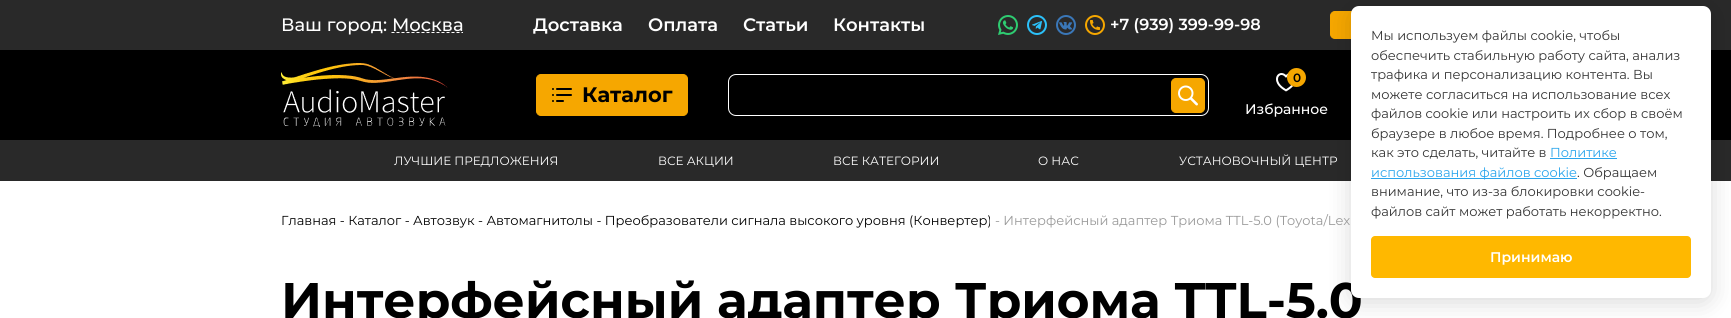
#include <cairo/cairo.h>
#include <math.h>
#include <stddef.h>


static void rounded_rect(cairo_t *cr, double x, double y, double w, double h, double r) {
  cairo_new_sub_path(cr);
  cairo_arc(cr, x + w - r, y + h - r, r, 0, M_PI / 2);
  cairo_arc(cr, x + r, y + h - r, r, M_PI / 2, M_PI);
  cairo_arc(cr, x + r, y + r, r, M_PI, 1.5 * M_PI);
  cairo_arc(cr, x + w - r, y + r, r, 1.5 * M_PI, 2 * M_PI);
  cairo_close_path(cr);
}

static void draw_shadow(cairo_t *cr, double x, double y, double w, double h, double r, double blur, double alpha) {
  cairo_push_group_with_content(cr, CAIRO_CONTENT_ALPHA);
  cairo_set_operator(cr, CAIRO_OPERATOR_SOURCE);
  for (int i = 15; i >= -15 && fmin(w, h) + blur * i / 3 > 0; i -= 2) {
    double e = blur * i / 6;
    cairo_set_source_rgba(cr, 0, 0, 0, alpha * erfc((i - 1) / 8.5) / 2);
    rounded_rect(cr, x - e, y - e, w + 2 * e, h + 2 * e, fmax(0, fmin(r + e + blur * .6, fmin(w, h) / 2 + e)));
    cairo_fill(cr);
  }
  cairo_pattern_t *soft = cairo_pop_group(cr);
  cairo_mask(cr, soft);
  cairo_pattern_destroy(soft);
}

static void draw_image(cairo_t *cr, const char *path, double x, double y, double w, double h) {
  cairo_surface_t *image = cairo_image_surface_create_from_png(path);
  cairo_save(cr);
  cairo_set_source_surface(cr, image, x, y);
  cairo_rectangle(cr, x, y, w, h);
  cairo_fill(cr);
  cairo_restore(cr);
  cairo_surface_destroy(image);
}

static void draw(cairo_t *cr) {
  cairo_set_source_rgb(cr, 1, 1, 1);
  cairo_paint(cr);
  cairo_set_source_rgb(cr, 0, 0, 0);
  cairo_rectangle(cr, 0, 50, 1731, 90);
  cairo_fill(cr);
  cairo_set_source_rgb(cr, 41 / 255.0, 41 / 255.0, 41 / 255.0);
  cairo_rectangle(cr, 0, 0, 1731, 50);
  cairo_fill(cr);
  cairo_new_path(cr);
  cairo_move_to(cr, 391.5, 32.5);
  cairo_line_to(cr, 463, 32.5);
  cairo_set_source_rgb(cr, 1, 1, 1);
  cairo_set_line_width(cr, 1);
  cairo_set_dash(cr, (double[]){3, 2}, 2, 0);
  cairo_stroke(cr);
  draw_image(cr, "images/1.png", 998, 15, 20, 20);
  draw_image(cr, "images/2.png", 1027, 15, 20, 20);
  draw_image(cr, "images/3.png", 1056, 15, 20, 20);
  draw_image(cr, "images/4.png", 1085, 15, 20, 20);
  cairo_set_source_rgb(cr, 246 / 255.0, 167 / 255.0, 0);
  rounded_rect(cr, 1330.5, 11.5, 166, 27, 4.5);
  cairo_fill_preserve(cr);
  cairo_set_dash(cr, NULL, 0, 0);
  cairo_stroke(cr);
  draw_image(cr, "images/5.png", 281, 63, 167, 64);
  rounded_rect(cr, 536.5, 74.5, 151, 41, 4.5);
  cairo_fill_preserve(cr);
  cairo_stroke(cr);
  draw_image(cr, "images/6.png", 552, 88, 20, 14);
  rounded_rect(cr, 728.5, 74.5, 480, 41, 7.5);
  cairo_set_source_rgb(cr, 1, 1, 1);
  cairo_stroke(cr);
  cairo_set_source_rgb(cr, 246 / 255.0, 167 / 255.0, 0);
  rounded_rect(cr, 1171.5, 78.5, 33, 34, 4.5);
  cairo_fill_preserve(cr);
  cairo_stroke(cr);
  draw_image(cr, "images/7.png", 1178, 85, 20, 21);
  draw_image(cr, "images/8.png", 1276, 73, 17, 19);
  cairo_arc(cr, 1296.5, 77.5, 9.5, 0, 2 * M_PI);
  cairo_fill(cr);
  cairo_set_source_rgb(cr, 41 / 255.0, 41 / 255.0, 41 / 255.0);
  cairo_rectangle(cr, 0, 140, 1731, 41);
  cairo_fill(cr);
  cairo_set_source_rgb(cr, 0, 0, 0);
  draw_shadow(cr, 1351, 10, 360, 292, 8, 12, 0.15);
  cairo_select_font_face(cr, "Montserrat Medium", CAIRO_FONT_SLANT_NORMAL, CAIRO_FONT_WEIGHT_NORMAL);
  cairo_set_font_size(cr, 18);
  cairo_set_source_rgb(cr, 1, 1, 1);
  cairo_move_to(cr, 281, 31);
  cairo_show_text(cr, "Ваш город: Москва");
  cairo_select_font_face(cr, "Montserrat SemiBold", CAIRO_FONT_SLANT_NORMAL, CAIRO_FONT_WEIGHT_NORMAL);
  cairo_move_to(cr, 533, 31);
  cairo_show_text(cr, "Доставка");
  cairo_move_to(cr, 648, 31);
  cairo_show_text(cr, "Оплата");
  cairo_move_to(cr, 743, 31);
  cairo_show_text(cr, "Статьи");
  cairo_move_to(cr, 833, 31);
  cairo_show_text(cr, "Контакты");
  cairo_set_font_size(cr, 16);
  cairo_move_to(cr, 1110, 30);
  cairo_show_text(cr, "+7 (939) 399-99-98");
  cairo_select_font_face(cr, "Montserrat", CAIRO_FONT_SLANT_NORMAL, CAIRO_FONT_WEIGHT_BOLD);
  cairo_set_font_size(cr, 21);
  cairo_set_source_rgb(cr, 0, 0, 0);
  cairo_move_to(cr, 582, 102);
  cairo_show_text(cr, "Каталог");
  cairo_select_font_face(cr, "Montserrat SemiBold", CAIRO_FONT_SLANT_NORMAL, CAIRO_FONT_WEIGHT_NORMAL);
  cairo_set_font_size(cr, 12);
  cairo_move_to(cr, 1293, 82);
  cairo_show_text(cr, "0");
  cairo_select_font_face(cr, "Montserrat Medium", CAIRO_FONT_SLANT_NORMAL, CAIRO_FONT_WEIGHT_NORMAL);
  cairo_set_font_size(cr, 14);
  cairo_set_source_rgb(cr, 1, 1, 1);
  cairo_move_to(cr, 1245, 114);
  cairo_show_text(cr, "Избранное");
  cairo_select_font_face(cr, "Montserrat", CAIRO_FONT_SLANT_NORMAL, CAIRO_FONT_WEIGHT_NORMAL);
  cairo_set_font_size(cr, 12);
  cairo_move_to(cr, 394, 165);
  cairo_show_text(cr, "ЛУЧШИЕ ПРЕДЛОЖЕНИЯ");
  cairo_move_to(cr, 658, 165);
  cairo_show_text(cr, "ВСЕ АКЦИИ");
  cairo_move_to(cr, 833, 165);
  cairo_show_text(cr, "ВСЕ КАТЕГОРИИ");
  cairo_move_to(cr, 1038, 165);
  cairo_show_text(cr, "О НАС");
  cairo_move_to(cr, 1179, 165);
  cairo_show_text(cr, "УСТАНОВОЧНЫЙ ЦЕНТР");
  cairo_set_font_size(cr, 13);
  cairo_set_source_rgb(cr, 0, 0, 0);
  cairo_move_to(cr, 281, 225);
  cairo_show_text(cr, "Главная - Каталог - Автозвук - Автомагнитолы - Преобразователи сигнала высокого уровня (Конвертер)");
  cairo_set_source_rgb(cr, 153 / 255.0, 153 / 255.0, 153 / 255.0);
  cairo_move_to(cr, 995, 225);
  cairo_show_text(cr, "- Интерфейсный адаптер Триома TTL-5.0 (Toyota/Lex");
  cairo_select_font_face(cr, "Montserrat", CAIRO_FONT_SLANT_NORMAL, CAIRO_FONT_WEIGHT_BOLD);
  cairo_set_font_size(cr, 50);
  cairo_set_source_rgb(cr, 0, 0, 0);
  cairo_move_to(cr, 281, 318);
  cairo_show_text(cr, "Интерфейсный адаптер Триома TTL-5.0");
  cairo_set_source_rgb(cr, 1, 1, 1);
  rounded_rect(cr, 1351, 6, 360, 292, 8);
  cairo_fill(cr);
  cairo_select_font_face(cr, "Montserrat", CAIRO_FONT_SLANT_NORMAL, CAIRO_FONT_WEIGHT_NORMAL);
  cairo_set_font_size(cr, 13);
  cairo_set_source_rgb(cr, 51 / 255.0, 51 / 255.0, 51 / 255.0);
  cairo_move_to(cr, 1371, 40);
  cairo_show_text(cr, "Мы используем файлы cookie, чтобы");
  cairo_move_to(cr, 1371, 60);
  cairo_show_text(cr, "обеспечить стабильную работу сайта, анализ");
  cairo_move_to(cr, 1371, 79);
  cairo_show_text(cr, "трафика и персонализацию контента. Вы");
  cairo_move_to(cr, 1371, 99);
  cairo_show_text(cr, "можете согласиться на использование всех");
  cairo_move_to(cr, 1371, 118);
  cairo_show_text(cr, "файлов cookie или настроить их сбор в своём");
  cairo_move_to(cr, 1371, 138);
  cairo_show_text(cr, "браузере в любое время. Подробнее о том,");
  cairo_move_to(cr, 1371, 157);
  cairo_show_text(cr, "как это сделать, читайте в");
  cairo_set_source_rgb(cr, 42 / 255.0, 165 / 255.0, 236 / 255.0);
  cairo_move_to(cr, 1550, 157);
  cairo_show_text(cr, "Политике");
  cairo_rectangle(cr, 1550, 158, 67, 1);
  cairo_fill(cr);
  cairo_rectangle(cr, 1371, 178, 206, 1);
  cairo_fill(cr);
  cairo_move_to(cr, 1371, 177);
  cairo_show_text(cr, "использования файлов cookie");
  cairo_set_source_rgb(cr, 51 / 255.0, 51 / 255.0, 51 / 255.0);
  cairo_move_to(cr, 1577, 177);
  cairo_show_text(cr, ". Обращаем");
  cairo_move_to(cr, 1371, 196);
  cairo_show_text(cr, "внимание, что из-за блокировки cookie-");
  cairo_move_to(cr, 1371, 216);
  cairo_show_text(cr, "файлов сайт может работать некорректно.");
  cairo_set_source_rgb(cr, 1, 184 / 255.0, 0);
  rounded_rect(cr, 1371, 236, 320, 42, 4);
  cairo_fill(cr);
  cairo_select_font_face(cr, "Montserrat SemiBold", CAIRO_FONT_SLANT_NORMAL, CAIRO_FONT_WEIGHT_NORMAL);
  cairo_set_font_size(cr, 14);
  cairo_set_source_rgb(cr, 1, 1, 1);
  cairo_move_to(cr, 1490, 262);
  cairo_show_text(cr, "Принимаю");
}

int main(void) {
  cairo_surface_t *surface = cairo_image_surface_create(CAIRO_FORMAT_RGB24, 1731, 318);
  cairo_t *cr = cairo_create(surface);
  cairo_font_options_t *options = cairo_font_options_create();
  cairo_font_options_set_hint_metrics(options, CAIRO_HINT_METRICS_OFF);
  cairo_font_options_set_hint_style(options, CAIRO_HINT_STYLE_NONE);
  cairo_set_font_options(cr, options);
  cairo_set_miter_limit(cr, 4);
  draw(cr);
  cairo_surface_write_to_png(surface, "out.png");
  cairo_font_options_destroy(options);
  cairo_destroy(cr);
  cairo_surface_destroy(surface);
  return 0;
}
